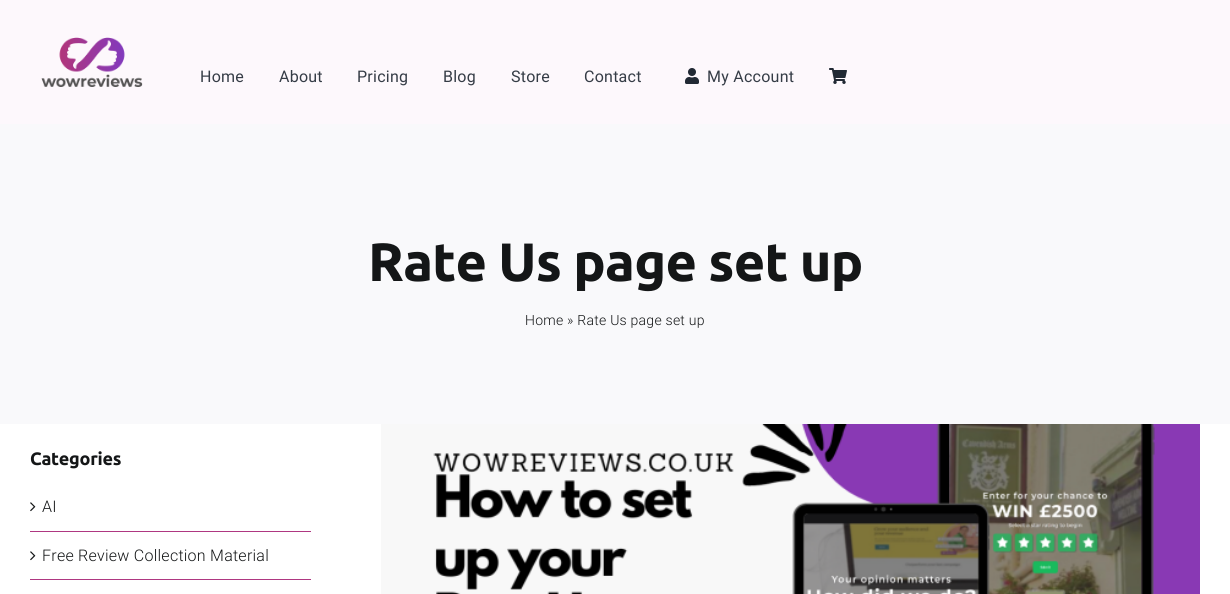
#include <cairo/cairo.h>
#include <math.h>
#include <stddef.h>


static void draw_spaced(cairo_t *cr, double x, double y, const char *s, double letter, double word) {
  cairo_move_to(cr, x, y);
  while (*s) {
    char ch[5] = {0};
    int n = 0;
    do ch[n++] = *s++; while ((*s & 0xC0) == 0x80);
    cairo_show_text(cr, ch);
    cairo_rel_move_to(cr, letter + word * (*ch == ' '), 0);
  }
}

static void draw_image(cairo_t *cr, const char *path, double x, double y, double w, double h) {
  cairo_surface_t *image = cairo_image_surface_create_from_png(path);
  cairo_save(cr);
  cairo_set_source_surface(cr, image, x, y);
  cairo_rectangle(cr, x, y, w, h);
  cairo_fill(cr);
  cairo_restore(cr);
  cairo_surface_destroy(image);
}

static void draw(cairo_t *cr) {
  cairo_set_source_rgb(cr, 1, 1, 1);
  cairo_paint(cr);
  cairo_set_source_rgb(cr, 253 / 255.0, 248 / 255.0, 252 / 255.0);
  cairo_rectangle(cr, 0, 0, 1230, 124);
  cairo_fill(cr);
  draw_image(cr, "images/1.png", 41, 37, 102, 50);
  draw_image(cr, "images/2.png", 685, 68, 14, 16);
  draw_image(cr, "images/3.png", 829, 68, 18, 16);
  cairo_set_source_rgb(cr, 249 / 255.0, 249 / 255.0, 251 / 255.0);
  cairo_rectangle(cr, 0, 124, 1230, 300);
  cairo_fill(cr);
  cairo_set_source_rgb(cr, 175 / 255.0, 55 / 255.0, 129 / 255.0);
  cairo_rectangle(cr, 30, 531, 281, 1);
  cairo_fill(cr);
  draw_image(cr, "images/4.png", 30, 502, 6, 10);
  cairo_rectangle(cr, 30, 579, 281, 1);
  cairo_fill(cr);
  draw_image(cr, "images/4.png", 30, 551, 6, 10);
  draw_image(cr, "images/5.png", 381, 424, 819, 170);
  cairo_select_font_face(cr, "Roboto", CAIRO_FONT_SLANT_NORMAL, CAIRO_FONT_WEIGHT_NORMAL);
  cairo_set_font_size(cr, 16);
  cairo_set_source_rgb(cr, 53 / 255.0, 60 / 255.0, 70 / 255.0);
  draw_spaced(cr, 200, 82, "Home", 0.25, 0);
  draw_spaced(cr, 279, 82, "About", 0.25, 0);
  draw_spaced(cr, 357, 82, "Pricing", 0.25, 0);
  draw_spaced(cr, 443, 82, "Blog", 0.25, 0);
  draw_spaced(cr, 511, 82, "Store", 0.25, 0);
  draw_spaced(cr, 584, 82, "Contact", 0.25, 0);
  draw_spaced(cr, 707, 82, "My Account", 0.25, 0);
  cairo_select_font_face(cr, "Ubuntu", CAIRO_FONT_SLANT_NORMAL, CAIRO_FONT_WEIGHT_BOLD);
  cairo_set_font_size(cr, 54);
  cairo_set_source_rgb(cr, 20 / 255.0, 22 / 255.0, 23 / 255.0);
  draw_spaced(cr, 368, 281, "Rate Us page set up", -0.8, 0);
  cairo_select_font_face(cr, "Roboto Light", CAIRO_FONT_SLANT_NORMAL, CAIRO_FONT_WEIGHT_NORMAL);
  cairo_set_font_size(cr, 14);
  draw_spaced(cr, 525, 325, "Home » Rate Us page set up", 0.25, 0);
  cairo_select_font_face(cr, "Ubuntu", CAIRO_FONT_SLANT_NORMAL, CAIRO_FONT_WEIGHT_BOLD);
  cairo_set_font_size(cr, 18);
  draw_spaced(cr, 30, 465, "Categories", -0.25, 0);
  cairo_select_font_face(cr, "Roboto Light", CAIRO_FONT_SLANT_NORMAL, CAIRO_FONT_WEIGHT_NORMAL);
  cairo_set_font_size(cr, 16);
  draw_spaced(cr, 42, 512, "AI", 0.25, 0);
  draw_spaced(cr, 42, 561, "Free Review Collection Material", 0.25, 0);
}

int main(void) {
  cairo_surface_t *surface = cairo_image_surface_create(CAIRO_FORMAT_RGB24, 1230, 594);
  cairo_t *cr = cairo_create(surface);
  cairo_font_options_t *options = cairo_font_options_create();
  cairo_font_options_set_hint_metrics(options, CAIRO_HINT_METRICS_OFF);
  cairo_font_options_set_hint_style(options, CAIRO_HINT_STYLE_NONE);
  cairo_set_font_options(cr, options);
  cairo_set_miter_limit(cr, 4);
  draw(cr);
  cairo_surface_write_to_png(surface, "out.png");
  cairo_font_options_destroy(options);
  cairo_destroy(cr);
  cairo_surface_destroy(surface);
  return 0;
}
